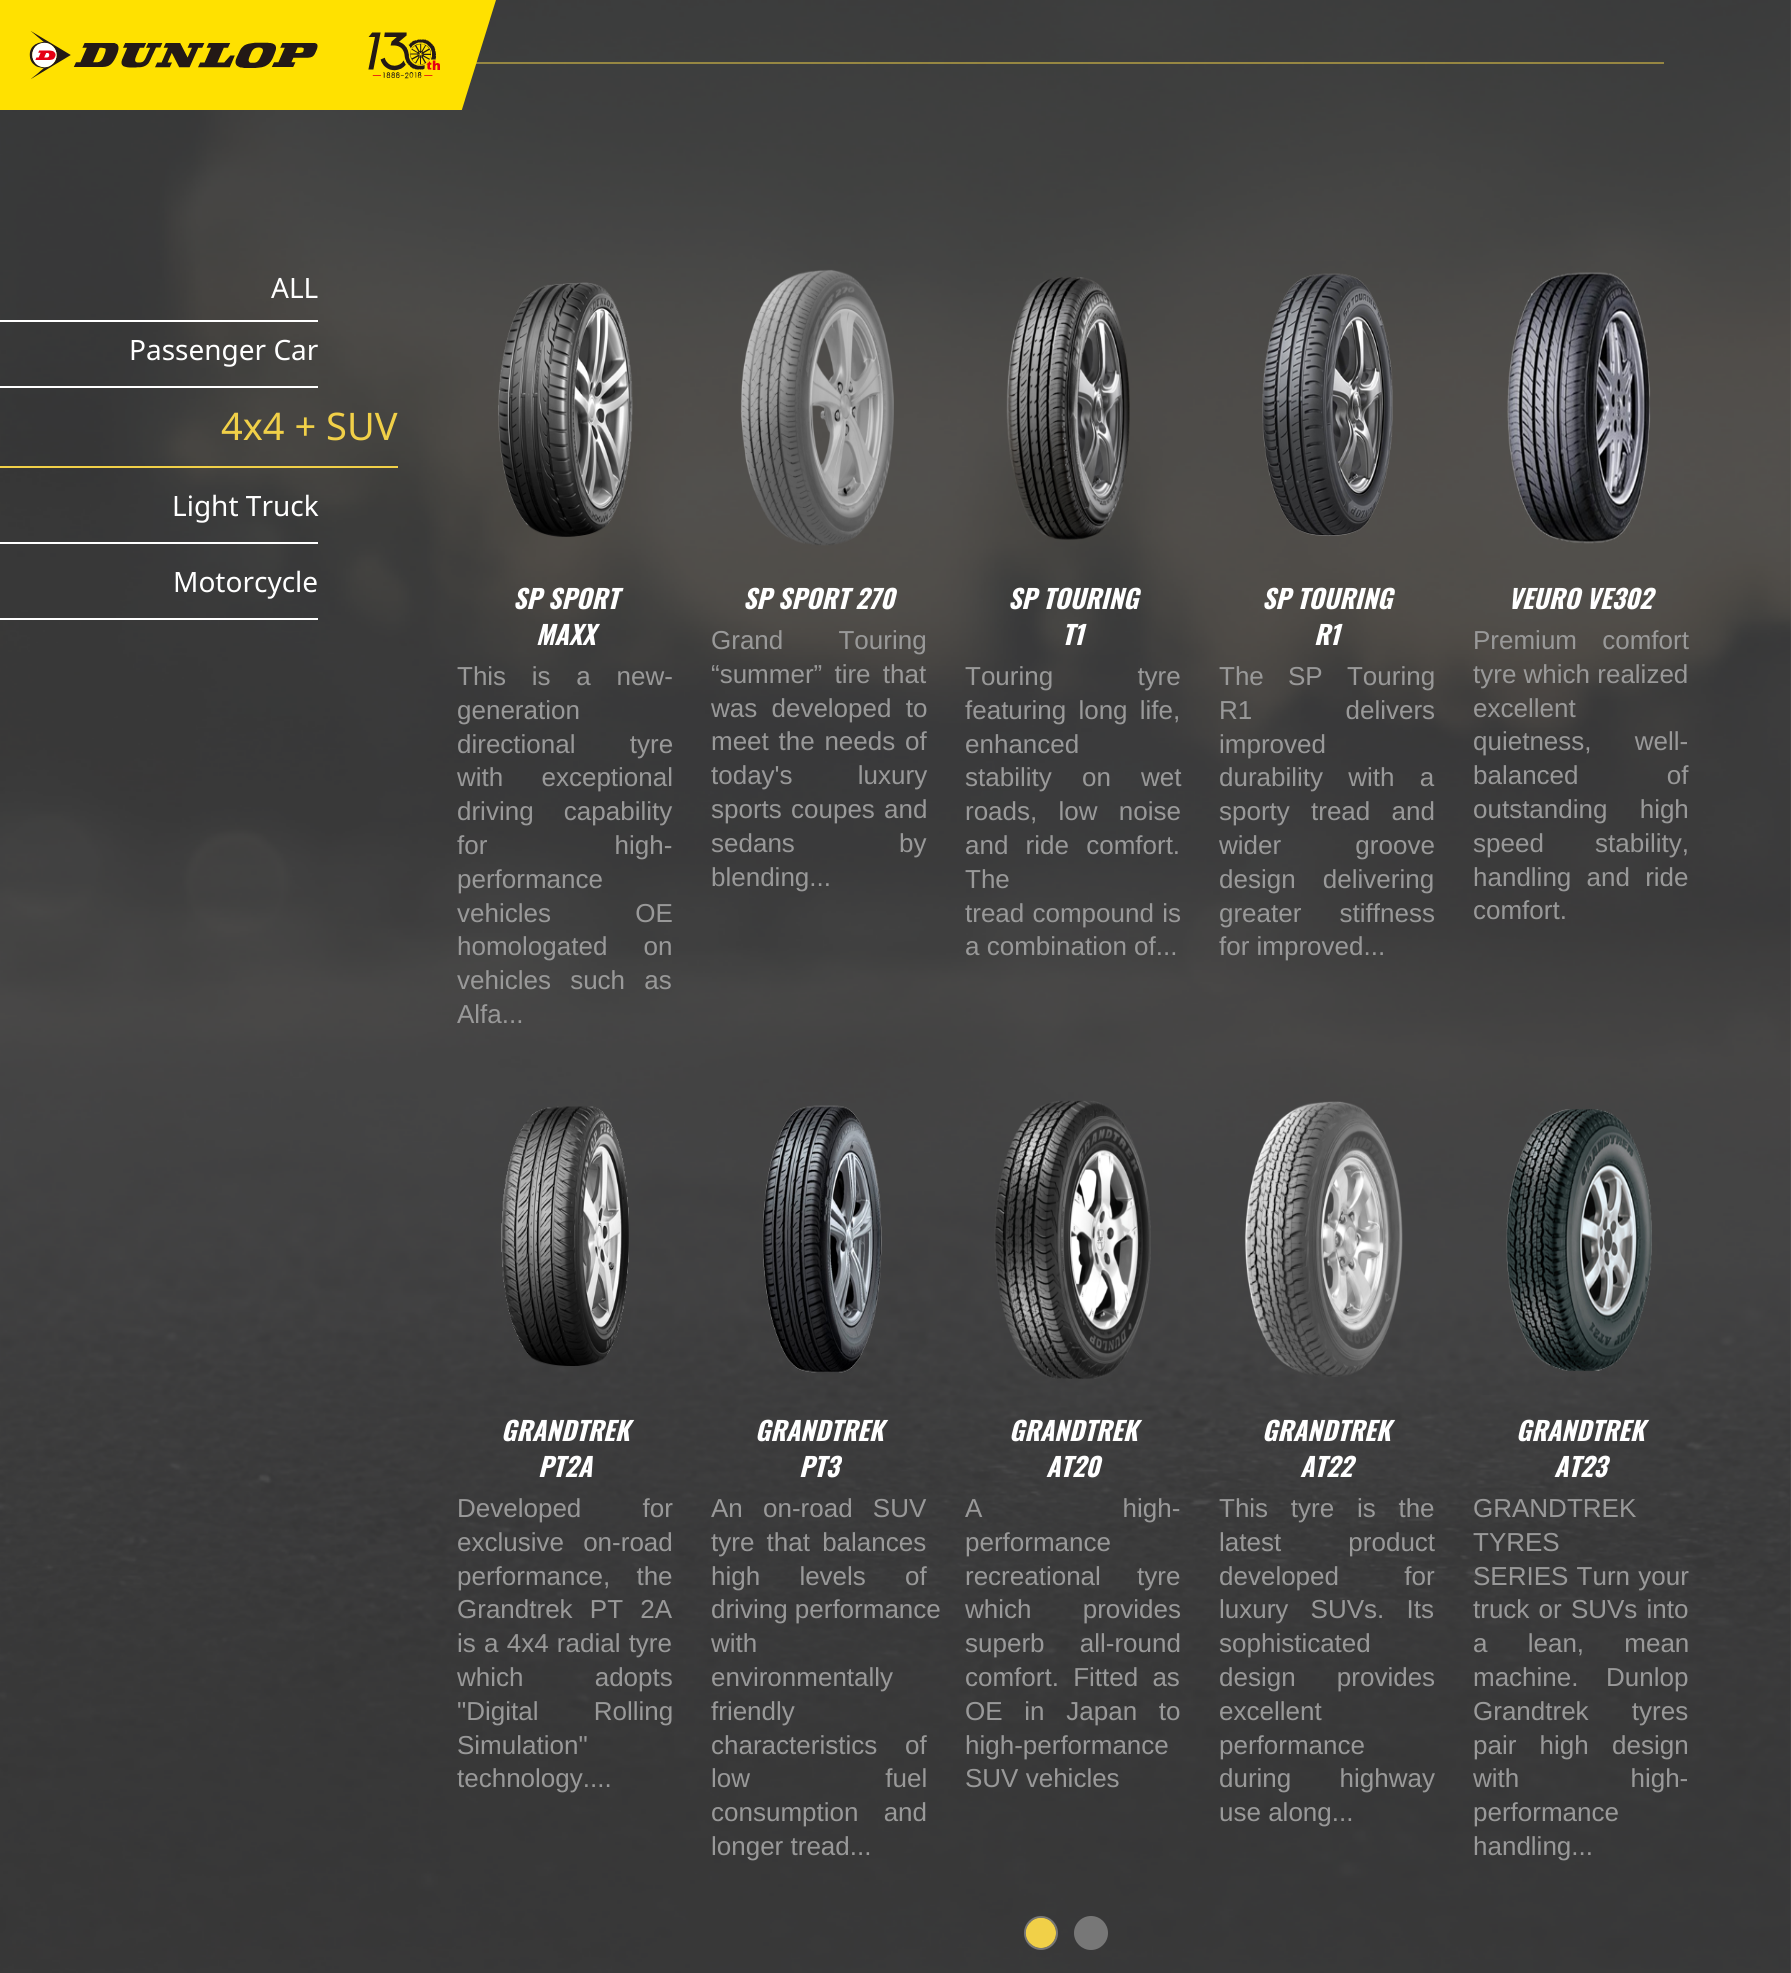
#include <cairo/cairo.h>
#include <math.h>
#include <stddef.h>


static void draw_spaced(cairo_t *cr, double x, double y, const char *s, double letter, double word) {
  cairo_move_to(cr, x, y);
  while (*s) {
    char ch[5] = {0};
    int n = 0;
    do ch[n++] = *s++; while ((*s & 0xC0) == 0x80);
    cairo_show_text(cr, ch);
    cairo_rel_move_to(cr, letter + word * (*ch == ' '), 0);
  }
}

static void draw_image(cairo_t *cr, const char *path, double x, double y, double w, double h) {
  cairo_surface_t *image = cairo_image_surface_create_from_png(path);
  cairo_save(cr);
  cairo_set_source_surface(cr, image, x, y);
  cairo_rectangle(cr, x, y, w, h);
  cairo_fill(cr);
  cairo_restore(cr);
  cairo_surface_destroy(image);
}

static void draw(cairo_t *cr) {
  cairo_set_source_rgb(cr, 1, 1, 1);
  cairo_paint(cr);
  draw_image(cr, "images/1.png", 0, 0, 1791, 1973);
  cairo_set_source_rgba(cr, 241 / 255.0, 208 / 255.0, 72 / 255.0, 0.5);
  cairo_rectangle(cr, 476, 62, 1188, 2);
  cairo_fill(cr);
  draw_image(cr, "images/2.png", 0, 0, 496, 110);
  cairo_set_source_rgb(cr, 1, 1, 1);
  cairo_rectangle(cr, 0, 320, 318, 2);
  cairo_fill(cr);
  cairo_rectangle(cr, 0, 386, 318, 2);
  cairo_fill(cr);
  cairo_set_source_rgb(cr, 241 / 255.0, 208 / 255.0, 72 / 255.0);
  cairo_rectangle(cr, 0, 466, 398, 2);
  cairo_fill(cr);
  cairo_set_source_rgb(cr, 1, 1, 1);
  cairo_rectangle(cr, 0, 542, 318, 2);
  cairo_fill(cr);
  cairo_rectangle(cr, 0, 618, 318, 2);
  cairo_fill(cr);
  draw_image(cr, "images/3.png", 498, 282, 135, 255);
  draw_image(cr, "images/4.png", 740, 269, 154, 277);
  draw_image(cr, "images/5.png", 1006, 277, 124, 263);
  draw_image(cr, "images/6.png", 1262, 273, 131, 263);
  draw_image(cr, "images/7.png", 1507, 272, 144, 272);
  draw_image(cr, "images/8.png", 501, 1106, 128, 260);
  draw_image(cr, "images/9.png", 762, 1105, 120, 268);
  draw_image(cr, "images/10.png", 994, 1100, 157, 279);
  draw_image(cr, "images/11.png", 1244, 1101, 159, 276);
  draw_image(cr, "images/12.png", 1506, 1109, 146, 262);
  cairo_arc(cr, 1041, 1933, 16, 0, 2 * M_PI);
  cairo_set_source_rgb(cr, 119 / 255.0, 119 / 255.0, 119 / 255.0);
  cairo_stroke(cr);
  cairo_set_source_rgb(cr, 241 / 255.0, 208 / 255.0, 72 / 255.0);
  cairo_arc(cr, 1041, 1933, 15, 0, 2 * M_PI);
  cairo_fill(cr);
  cairo_set_fill_rule(cr, CAIRO_FILL_RULE_EVEN_ODD);
  cairo_new_path(cr);
  cairo_move_to(cr, 1041, 1918);
  cairo_curve_to(cr, 1037, 1918, 1033.5, 1919.5, 1031, 1922);
  cairo_line_to(cr, 1051, 1922);
  cairo_curve_to(cr, 1048.5, 1919.5, 1045, 1918, 1041, 1918);
  cairo_close_path(cr);
  cairo_move_to(cr, 1030, 1943);
  cairo_curve_to(cr, 1024.5, 1937.5, 1024.5, 1928.5, 1030, 1923);
  cairo_close_path(cr);
  cairo_fill(cr);
  cairo_set_source_rgb(cr, 119 / 255.0, 119 / 255.0, 119 / 255.0);
  cairo_arc(cr, 1091, 1933, 16, 0, 2 * M_PI);
  cairo_fill_preserve(cr);
  cairo_stroke(cr);
  cairo_select_font_face(cr, "Noto Sans", CAIRO_FONT_SLANT_NORMAL, CAIRO_FONT_WEIGHT_NORMAL);
  cairo_set_font_size(cr, 28);
  cairo_set_source_rgb(cr, 1, 1, 1);
  cairo_move_to(cr, 271, 298);
  cairo_show_text(cr, "ALL");
  cairo_move_to(cr, 129, 360);
  cairo_show_text(cr, "Passenger Car");
  cairo_set_font_size(cr, 38);
  cairo_set_source_rgb(cr, 241 / 255.0, 208 / 255.0, 72 / 255.0);
  cairo_move_to(cr, 221, 440);
  cairo_show_text(cr, "4x4 + SUV");
  cairo_set_font_size(cr, 28);
  cairo_set_source_rgb(cr, 1, 1, 1);
  cairo_move_to(cr, 172, 516);
  cairo_show_text(cr, "Light Truck");
  cairo_move_to(cr, 173, 592);
  cairo_show_text(cr, "Motorcycle");
  cairo_select_font_face(cr, "Oswald", CAIRO_FONT_SLANT_ITALIC, CAIRO_FONT_WEIGHT_BOLD);
  cairo_set_font_size(cr, 26);
  cairo_move_to(cr, 513, 609);
  cairo_show_text(cr, "SP SPORT");
  cairo_move_to(cr, 536, 645);
  cairo_show_text(cr, "MAXX");
  cairo_select_font_face(cr, "Liberation Sans", CAIRO_FONT_SLANT_NORMAL, CAIRO_FONT_WEIGHT_NORMAL);
  cairo_set_source_rgb(cr, 153 / 255.0, 153 / 255.0, 153 / 255.0);
  draw_spaced(cr, 457, 685, "This is a new-", 0, 18.5);
  cairo_move_to(cr, 457, 719);
  cairo_show_text(cr, "generation");
  draw_spaced(cr, 457, 753, "directional tyre", 0, 47);
  draw_spaced(cr, 457, 786, "with exceptional", 0, 31);
  draw_spaced(cr, 457, 820, "driving capability", 0, 23);
  draw_spaced(cr, 457, 854, "for high-", 0, 120);
  cairo_move_to(cr, 457, 888);
  cairo_show_text(cr, "performance");
  draw_spaced(cr, 457, 922, "vehicles OE", 0, 77);
  draw_spaced(cr, 457, 955, "homologated on", 0, 29);
  draw_spaced(cr, 457, 989, "vehicles such as", 0, 12);
  cairo_move_to(cr, 457, 1023);
  cairo_show_text(cr, "Alfa...");
  cairo_select_font_face(cr, "Oswald", CAIRO_FONT_SLANT_ITALIC, CAIRO_FONT_WEIGHT_BOLD);
  cairo_set_source_rgb(cr, 1, 1, 1);
  cairo_move_to(cr, 743, 609);
  cairo_show_text(cr, "SP SPORT 270");
  cairo_select_font_face(cr, "Liberation Sans", CAIRO_FONT_SLANT_NORMAL, CAIRO_FONT_WEIGHT_NORMAL);
  cairo_set_source_rgb(cr, 153 / 255.0, 153 / 255.0, 153 / 255.0);
  draw_spaced(cr, 711, 649, "Grand Touring", 0, 48);
  draw_spaced(cr, 711, 683, "“summer” tire that", 0, 5);
  draw_spaced(cr, 711, 717, "was developed to", 0, 7);
  draw_spaced(cr, 711, 750, "meet the needs of", 0, 2.5);
  draw_spaced(cr, 711, 784, "today's luxury", 0, 58);
  draw_spaced(cr, 711, 818, "sports coupes and", 0, 2);
  draw_spaced(cr, 711, 852, "sedans by", 0, 97);
  cairo_move_to(cr, 711, 886);
  cairo_show_text(cr, "blending...");
  cairo_select_font_face(cr, "Oswald", CAIRO_FONT_SLANT_ITALIC, CAIRO_FONT_WEIGHT_BOLD);
  cairo_set_source_rgb(cr, 1, 1, 1);
  cairo_move_to(cr, 1008, 609);
  cairo_show_text(cr, "SP TOURING");
  cairo_move_to(cr, 1062, 645);
  cairo_show_text(cr, "T1");
  cairo_select_font_face(cr, "Liberation Sans", CAIRO_FONT_SLANT_NORMAL, CAIRO_FONT_WEIGHT_NORMAL);
  cairo_set_source_rgb(cr, 153 / 255.0, 153 / 255.0, 153 / 255.0);
  draw_spaced(cr, 965, 685, "Touring tyre", 0, 77);
  draw_spaced(cr, 965, 719, "featuring long life,", 0, 5);
  cairo_move_to(cr, 965, 753);
  cairo_show_text(cr, "enhanced");
  draw_spaced(cr, 965, 786, "stability on wet", 0, 23);
  draw_spaced(cr, 965, 820, "roads, low noise", 0, 14);
  draw_spaced(cr, 965, 854, "and ride comfort.", 0, 10);
  cairo_move_to(cr, 965, 888);
  cairo_show_text(cr, "The");
  draw_spaced(cr, 965, 922, "tread compound is", 0, 1);
  cairo_move_to(cr, 965, 955);
  cairo_show_text(cr, "a combination of...");
  cairo_select_font_face(cr, "Oswald", CAIRO_FONT_SLANT_ITALIC, CAIRO_FONT_WEIGHT_BOLD);
  cairo_set_source_rgb(cr, 1, 1, 1);
  cairo_move_to(cr, 1262, 609);
  cairo_show_text(cr, "SP TOURING");
  cairo_move_to(cr, 1314, 645);
  cairo_show_text(cr, "R1");
  cairo_select_font_face(cr, "Liberation Sans", CAIRO_FONT_SLANT_NORMAL, CAIRO_FONT_WEIGHT_NORMAL);
  cairo_set_source_rgb(cr, 153 / 255.0, 153 / 255.0, 153 / 255.0);
  draw_spaced(cr, 1219, 685, "The SP Touring", 0, 17);
  draw_spaced(cr, 1219, 719, "R1 delivers", 0, 86);
  cairo_move_to(cr, 1219, 753);
  cairo_show_text(cr, "improved");
  draw_spaced(cr, 1219, 786, "durability with a", 0, 18);
  draw_spaced(cr, 1219, 820, "sporty tread and", 0, 14);
  draw_spaced(cr, 1219, 854, "wider groove", 0, 67);
  draw_spaced(cr, 1219, 888, "design delivering", 0, 20);
  draw_spaced(cr, 1219, 922, "greater stiffness", 0, 31);
  cairo_move_to(cr, 1219, 955);
  cairo_show_text(cr, "for improved...");
  cairo_select_font_face(cr, "Oswald", CAIRO_FONT_SLANT_ITALIC, CAIRO_FONT_WEIGHT_BOLD);
  cairo_set_source_rgb(cr, 1, 1, 1);
  cairo_move_to(cr, 1508, 609);
  cairo_show_text(cr, "VEURO VE302");
  cairo_select_font_face(cr, "Liberation Sans", CAIRO_FONT_SLANT_NORMAL, CAIRO_FONT_WEIGHT_NORMAL);
  cairo_set_source_rgb(cr, 153 / 255.0, 153 / 255.0, 153 / 255.0);
  draw_spaced(cr, 1473, 649, "Premium comfort", 0, 18);
  cairo_move_to(cr, 1473, 683);
  cairo_show_text(cr, "tyre which realized");
  cairo_move_to(cr, 1473, 717);
  cairo_show_text(cr, "excellent");
  draw_spaced(cr, 1473, 750, "quietness, well-", 0, 36);
  draw_spaced(cr, 1473, 784, "balanced of", 0, 81);
  draw_spaced(cr, 1473, 818, "outstanding high", 0, 25);
  draw_spaced(cr, 1473, 852, "speed stability,", 0, 44);
  draw_spaced(cr, 1473, 886, "handling and ride", 0, 8);
  cairo_move_to(cr, 1473, 919);
  cairo_show_text(cr, "comfort.");
  cairo_select_font_face(cr, "Oswald", CAIRO_FONT_SLANT_ITALIC, CAIRO_FONT_WEIGHT_BOLD);
  cairo_set_source_rgb(cr, 1, 1, 1);
  cairo_move_to(cr, 501, 1441);
  cairo_show_text(cr, "GRANDTREK");
  cairo_move_to(cr, 538, 1477);
  cairo_show_text(cr, "PT2A");
  cairo_select_font_face(cr, "Liberation Sans", CAIRO_FONT_SLANT_NORMAL, CAIRO_FONT_WEIGHT_NORMAL);
  cairo_set_source_rgb(cr, 153 / 255.0, 153 / 255.0, 153 / 255.0);
  draw_spaced(cr, 457, 1517, "Developed for", 0, 54);
  draw_spaced(cr, 457, 1551, "exclusive on-road", 0, 12);
  draw_spaced(cr, 457, 1585, "performance, the", 0, 19);
  draw_spaced(cr, 457, 1618, "Grandtrek PT 2A", 0, 10);
  draw_spaced(cr, 457, 1652, "is a 4x4 radial tyre", 0, 1);
  draw_spaced(cr, 457, 1686, "which adopts", 0, 64);
  draw_spaced(cr, 457, 1720, "\"Digital Rolling", 0, 48);
  cairo_move_to(cr, 457, 1754);
  cairo_show_text(cr, "Simulation\"");
  cairo_move_to(cr, 457, 1787);
  cairo_show_text(cr, "technology....");
  cairo_select_font_face(cr, "Oswald", CAIRO_FONT_SLANT_ITALIC, CAIRO_FONT_WEIGHT_BOLD);
  cairo_set_source_rgb(cr, 1, 1, 1);
  cairo_move_to(cr, 755, 1441);
  cairo_show_text(cr, "GRANDTREK");
  cairo_move_to(cr, 799, 1477);
  cairo_show_text(cr, "PT3");
  cairo_select_font_face(cr, "Liberation Sans", CAIRO_FONT_SLANT_NORMAL, CAIRO_FONT_WEIGHT_NORMAL);
  cairo_set_source_rgb(cr, 153 / 255.0, 153 / 255.0, 153 / 255.0);
  draw_spaced(cr, 711, 1517, "An on-road SUV", 0, 13);
  draw_spaced(cr, 711, 1551, "tyre that balances", 0, 5);
  draw_spaced(cr, 711, 1585, "high levels of", 0, 32);
  cairo_move_to(cr, 711, 1618);
  cairo_show_text(cr, "driving performance");
  cairo_move_to(cr, 711, 1652);
  cairo_show_text(cr, "with");
  cairo_move_to(cr, 711, 1686);
  cairo_show_text(cr, "environmentally");
  cairo_move_to(cr, 711, 1720);
  cairo_show_text(cr, "friendly");
  cairo_move_to(cr, 711, 1754);
  cairo_show_text(cr, "characteristics");
  cairo_move_to(cr, 905, 1754);
  cairo_show_text(cr, "of");
  draw_spaced(cr, 711, 1787, "low fuel", 0, 128);
  draw_spaced(cr, 711, 1821, "consumption and", 0, 18);
  cairo_move_to(cr, 711, 1855);
  cairo_show_text(cr, "longer tread...");
  cairo_select_font_face(cr, "Oswald", CAIRO_FONT_SLANT_ITALIC, CAIRO_FONT_WEIGHT_BOLD);
  cairo_set_source_rgb(cr, 1, 1, 1);
  cairo_move_to(cr, 1009, 1441);
  cairo_show_text(cr, "GRANDTREK");
  cairo_move_to(cr, 1046, 1477);
  cairo_show_text(cr, "AT20");
  cairo_select_font_face(cr, "Liberation Sans", CAIRO_FONT_SLANT_NORMAL, CAIRO_FONT_WEIGHT_NORMAL);
  cairo_set_source_rgb(cr, 153 / 255.0, 153 / 255.0, 153 / 255.0);
  draw_spaced(cr, 965, 1517, "A high-", 0, 133);
  cairo_move_to(cr, 965, 1551);
  cairo_show_text(cr, "performance");
  draw_spaced(cr, 965, 1585, "recreational tyre", 0, 29);
  draw_spaced(cr, 965, 1618, "which provides", 0, 44);
  draw_spaced(cr, 965, 1652, "superb all-round", 0, 28);
  draw_spaced(cr, 965, 1686, "comfort. Fitted as", 0, 7);
  draw_spaced(cr, 965, 1720, "OE in Japan to", 0, 14.5);
  cairo_move_to(cr, 965, 1754);
  cairo_show_text(cr, "high-performance");
  cairo_move_to(cr, 965, 1787);
  cairo_show_text(cr, "SUV vehicles");
  cairo_select_font_face(cr, "Oswald", CAIRO_FONT_SLANT_ITALIC, CAIRO_FONT_WEIGHT_BOLD);
  cairo_set_source_rgb(cr, 1, 1, 1);
  cairo_move_to(cr, 1262, 1441);
  cairo_show_text(cr, "GRANDTREK");
  cairo_move_to(cr, 1300, 1477);
  cairo_show_text(cr, "AT22");
  cairo_select_font_face(cr, "Liberation Sans", CAIRO_FONT_SLANT_NORMAL, CAIRO_FONT_WEIGHT_NORMAL);
  cairo_set_source_rgb(cr, 153 / 255.0, 153 / 255.0, 153 / 255.0);
  draw_spaced(cr, 1219, 1517, "This tyre is the", 0, 15.5);
  draw_spaced(cr, 1219, 1551, "latest product", 0, 60);
  draw_spaced(cr, 1219, 1585, "developed for", 0, 58);
  draw_spaced(cr, 1219, 1618, "luxury SUVs. Its", 0, 15);
  cairo_move_to(cr, 1219, 1652);
  cairo_show_text(cr, "sophisticated");
  draw_spaced(cr, 1219, 1686, "design provides", 0, 34);
  cairo_move_to(cr, 1219, 1720);
  cairo_show_text(cr, "excellent");
  cairo_move_to(cr, 1219, 1754);
  cairo_show_text(cr, "performance");
  draw_spaced(cr, 1219, 1787, "during highway", 0, 41);
  cairo_move_to(cr, 1219, 1821);
  cairo_show_text(cr, "use along...");
  cairo_select_font_face(cr, "Oswald", CAIRO_FONT_SLANT_ITALIC, CAIRO_FONT_WEIGHT_BOLD);
  cairo_set_source_rgb(cr, 1, 1, 1);
  cairo_move_to(cr, 1516, 1441);
  cairo_show_text(cr, "GRANDTREK");
  cairo_move_to(cr, 1554, 1477);
  cairo_show_text(cr, "AT23");
  cairo_select_font_face(cr, "Liberation Sans", CAIRO_FONT_SLANT_NORMAL, CAIRO_FONT_WEIGHT_NORMAL);
  cairo_set_source_rgb(cr, 153 / 255.0, 153 / 255.0, 153 / 255.0);
  cairo_move_to(cr, 1473, 1517);
  cairo_show_text(cr, "GRANDTREK");
  cairo_move_to(cr, 1473, 1551);
  cairo_show_text(cr, "TYRES");
  draw_spaced(cr, 1473, 1585, "SERIES Turn your", 0, 1);
  draw_spaced(cr, 1473, 1618, "truck or SUVs into", 0, 2);
  draw_spaced(cr, 1473, 1652, "a lean, mean", 0, 33);
  cairo_move_to(cr, 1473, 1686);
  cairo_show_text(cr, "machine.");
  cairo_move_to(cr, 1606, 1686);
  cairo_show_text(cr, "Dunlop");
  draw_spaced(cr, 1473, 1720, "Grandtrek tyres", 0, 36);
  draw_spaced(cr, 1473, 1754, "pair high design", 0, 16);
  draw_spaced(cr, 1473, 1787, "with high-", 0, 104);
  cairo_move_to(cr, 1473, 1821);
  cairo_show_text(cr, "performance");
  cairo_move_to(cr, 1473, 1855);
  cairo_show_text(cr, "handling...");
}

int main(void) {
  cairo_surface_t *surface = cairo_image_surface_create(CAIRO_FORMAT_RGB24, 1791, 1973);
  cairo_t *cr = cairo_create(surface);
  cairo_font_options_t *options = cairo_font_options_create();
  cairo_font_options_set_hint_metrics(options, CAIRO_HINT_METRICS_OFF);
  cairo_font_options_set_hint_style(options, CAIRO_HINT_STYLE_NONE);
  cairo_set_font_options(cr, options);
  cairo_set_miter_limit(cr, 4);
  draw(cr);
  cairo_surface_write_to_png(surface, "out.png");
  cairo_font_options_destroy(options);
  cairo_destroy(cr);
  cairo_surface_destroy(surface);
  return 0;
}
